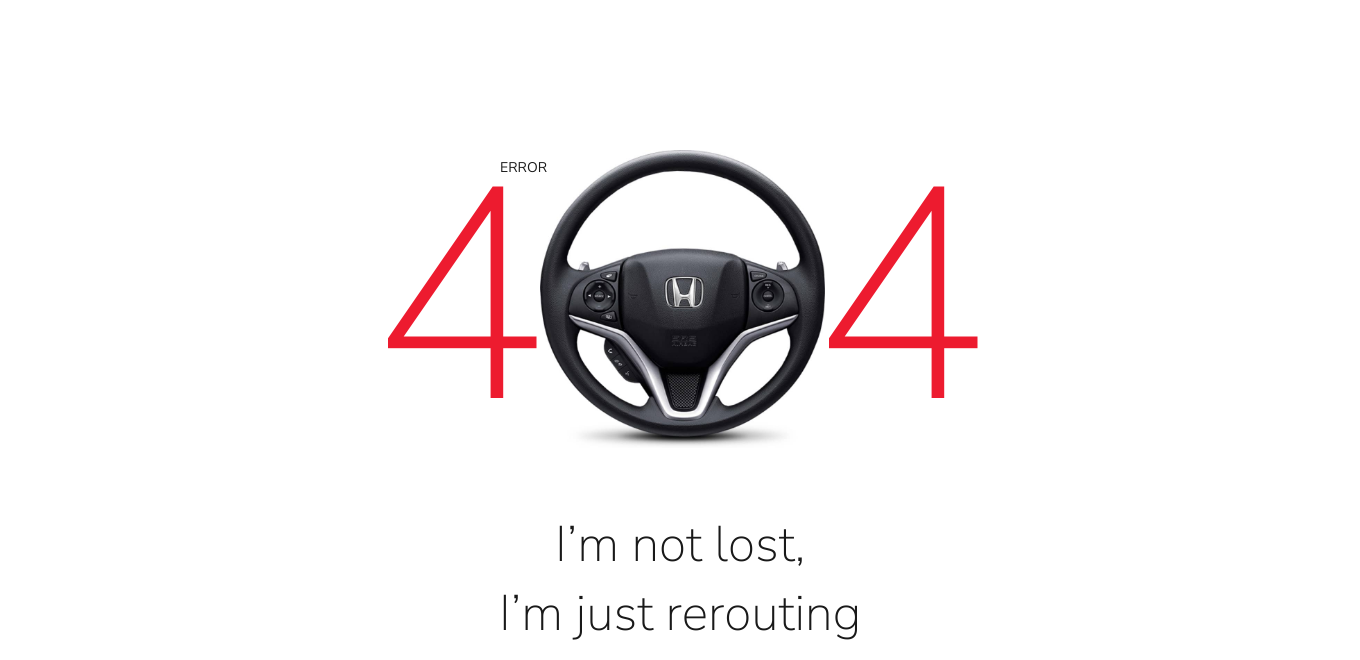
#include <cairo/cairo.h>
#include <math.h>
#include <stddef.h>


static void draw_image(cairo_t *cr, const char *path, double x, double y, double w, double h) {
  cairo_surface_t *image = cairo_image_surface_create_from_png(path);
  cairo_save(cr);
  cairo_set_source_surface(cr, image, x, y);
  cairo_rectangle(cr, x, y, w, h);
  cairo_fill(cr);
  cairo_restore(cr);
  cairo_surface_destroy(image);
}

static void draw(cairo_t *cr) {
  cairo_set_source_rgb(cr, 1, 1, 1);
  cairo_paint(cr);
  draw_image(cr, "images/1.png", 540, 150, 285, 298);
  cairo_select_font_face(cr, "Nunito Sans", CAIRO_FONT_SLANT_NORMAL, CAIRO_FONT_WEIGHT_NORMAL);
  cairo_set_font_size(cr, 14);
  cairo_set_source_rgb(cr, 25 / 255.0, 25 / 255.0, 25 / 255.0);
  cairo_move_to(cr, 500, 172);
  cairo_show_text(cr, "ERROR");
  cairo_select_font_face(cr, "Nunito Sans ExtraLight", CAIRO_FONT_SLANT_NORMAL, CAIRO_FONT_WEIGHT_NORMAL);
  cairo_set_font_size(cr, 300);
  cairo_set_source_rgb(cr, 237 / 255.0, 27 / 255.0, 47 / 255.0);
  cairo_move_to(cr, 370, 398);
  cairo_show_text(cr, "4");
  cairo_move_to(cr, 811, 398);
  cairo_show_text(cr, "4");
  cairo_set_font_size(cr, 50);
  cairo_set_source_rgb(cr, 25 / 255.0, 25 / 255.0, 25 / 255.0);
  cairo_move_to(cr, 555, 561);
  cairo_show_text(cr, "I’m not lost,");
  cairo_move_to(cr, 499, 630);
  cairo_show_text(cr, "I’m just rerouting");
}

int main(void) {
  cairo_surface_t *surface = cairo_image_surface_create(CAIRO_FORMAT_RGB24, 1360, 660);
  cairo_t *cr = cairo_create(surface);
  cairo_font_options_t *options = cairo_font_options_create();
  cairo_font_options_set_hint_metrics(options, CAIRO_HINT_METRICS_OFF);
  cairo_font_options_set_hint_style(options, CAIRO_HINT_STYLE_NONE);
  cairo_set_font_options(cr, options);
  cairo_set_miter_limit(cr, 4);
  draw(cr);
  cairo_surface_write_to_png(surface, "out.png");
  cairo_font_options_destroy(options);
  cairo_destroy(cr);
  cairo_surface_destroy(surface);
  return 0;
}
